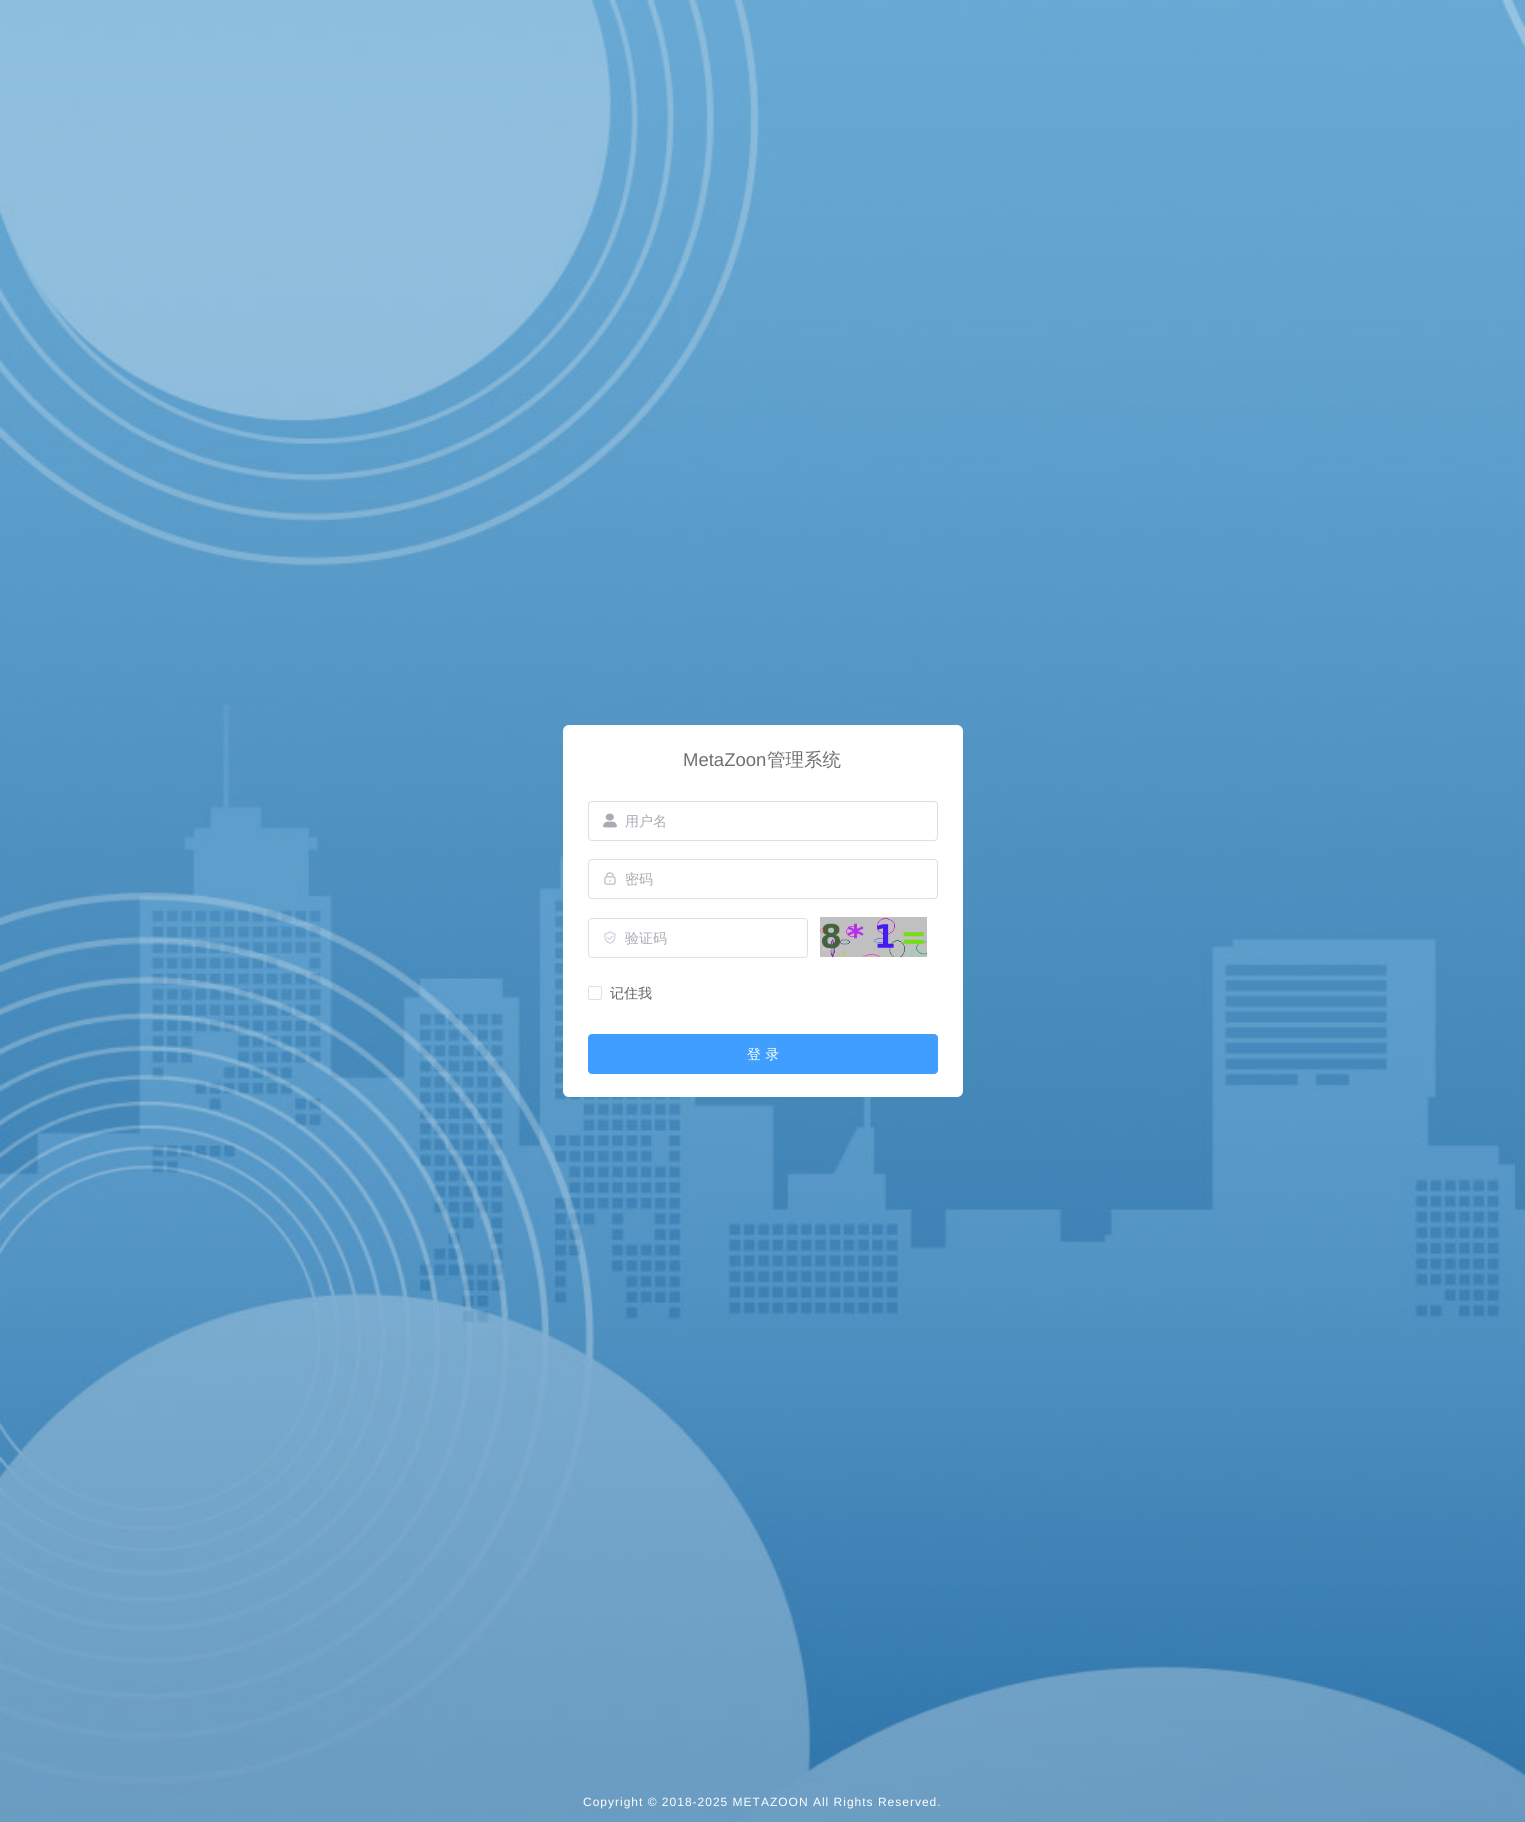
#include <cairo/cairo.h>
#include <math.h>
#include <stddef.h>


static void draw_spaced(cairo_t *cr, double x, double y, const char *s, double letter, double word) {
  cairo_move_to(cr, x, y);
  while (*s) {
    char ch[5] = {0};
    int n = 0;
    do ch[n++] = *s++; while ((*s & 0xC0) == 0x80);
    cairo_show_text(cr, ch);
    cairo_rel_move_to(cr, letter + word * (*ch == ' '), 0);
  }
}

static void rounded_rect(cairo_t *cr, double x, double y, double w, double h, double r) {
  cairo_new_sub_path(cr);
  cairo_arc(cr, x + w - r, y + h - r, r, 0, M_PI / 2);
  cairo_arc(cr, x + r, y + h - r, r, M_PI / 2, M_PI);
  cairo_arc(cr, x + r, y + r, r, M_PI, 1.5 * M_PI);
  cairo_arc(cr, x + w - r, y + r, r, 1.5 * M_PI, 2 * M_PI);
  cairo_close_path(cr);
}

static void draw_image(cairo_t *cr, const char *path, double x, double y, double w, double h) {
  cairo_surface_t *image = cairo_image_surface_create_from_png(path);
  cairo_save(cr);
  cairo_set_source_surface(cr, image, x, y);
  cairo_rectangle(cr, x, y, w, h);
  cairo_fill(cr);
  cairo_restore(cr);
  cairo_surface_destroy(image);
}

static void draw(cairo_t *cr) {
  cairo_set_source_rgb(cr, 1, 1, 1);
  cairo_paint(cr);
  draw_image(cr, "images/1.png", 0, 0, 1525, 1822);
  cairo_set_source_rgb(cr, 1, 1, 1);
  rounded_rect(cr, 563, 725, 400, 372, 6);
  cairo_fill(cr);
  rounded_rect(cr, 588.5, 801.5, 349, 39, 3.5);
  cairo_set_source_rgb(cr, 220 / 255.0, 223 / 255.0, 230 / 255.0);
  cairo_set_line_width(cr, 1);
  cairo_stroke(cr);
  draw_image(cr, "images/2.png", 603, 813, 14, 15);
  rounded_rect(cr, 588.5, 859.5, 349, 39, 3.5);
  cairo_stroke(cr);
  draw_image(cr, "images/3.png", 604, 872, 12, 13);
  rounded_rect(cr, 588.5, 918.5, 219, 39, 3.5);
  cairo_stroke(cr);
  draw_image(cr, "images/4.png", 604, 931, 12, 13);
  draw_image(cr, "images/5.png", 820, 917, 107, 40);
  rounded_rect(cr, 588.5, 986.5, 13, 13, 1.5);
  cairo_stroke(cr);
  cairo_set_source_rgb(cr, 64 / 255.0, 158 / 255.0, 1);
  rounded_rect(cr, 588.5, 1034.5, 349, 39, 3.5);
  cairo_fill_preserve(cr);
  cairo_stroke(cr);
  cairo_select_font_face(cr, "Liberation Sans", CAIRO_FONT_SLANT_NORMAL, CAIRO_FONT_WEIGHT_NORMAL);
  cairo_set_font_size(cr, 18.5);
  cairo_set_source_rgb(cr, 112 / 255.0, 112 / 255.0, 112 / 255.0);
  cairo_move_to(cr, 683, 766);
  cairo_show_text(cr, "MetaZoon");
  cairo_select_font_face(cr, "WenQuanYi Zen Hei Medium", CAIRO_FONT_SLANT_NORMAL, CAIRO_FONT_WEIGHT_NORMAL);
  cairo_move_to(cr, 767, 766);
  cairo_show_text(cr, "管理系统");
  cairo_set_font_size(cr, 14);
  cairo_set_source_rgb(cr, 168 / 255.0, 171 / 255.0, 178 / 255.0);
  cairo_move_to(cr, 625, 826);
  cairo_show_text(cr, "用户名");
  cairo_move_to(cr, 625, 884);
  cairo_show_text(cr, "密码");
  cairo_save(cr);
  cairo_rectangle(cr, 625, 930, 168, 18);
  cairo_clip(cr);
  cairo_move_to(cr, 625, 943);
  cairo_show_text(cr, "验证码");
  cairo_restore(cr);
  cairo_set_source_rgb(cr, 96 / 255.0, 98 / 255.0, 102 / 255.0);
  cairo_move_to(cr, 610, 998);
  cairo_show_text(cr, "记住我");
  cairo_set_source_rgb(cr, 1, 1, 1);
  cairo_move_to(cr, 747, 1059);
  cairo_show_text(cr, "登 录");
  cairo_select_font_face(cr, "Liberation Sans", CAIRO_FONT_SLANT_NORMAL, CAIRO_FONT_WEIGHT_NORMAL);
  cairo_set_font_size(cr, 12);
  draw_spaced(cr, 583, 1806, "Copyright © 2018-2025 METAZOON All Rights Reserved.", 1, 0);
}

int main(void) {
  cairo_surface_t *surface = cairo_image_surface_create(CAIRO_FORMAT_RGB24, 1525, 1822);
  cairo_t *cr = cairo_create(surface);
  cairo_font_options_t *options = cairo_font_options_create();
  cairo_font_options_set_hint_metrics(options, CAIRO_HINT_METRICS_OFF);
  cairo_font_options_set_hint_style(options, CAIRO_HINT_STYLE_NONE);
  cairo_set_font_options(cr, options);
  cairo_set_miter_limit(cr, 4);
  draw(cr);
  cairo_surface_write_to_png(surface, "out.png");
  cairo_font_options_destroy(options);
  cairo_destroy(cr);
  cairo_surface_destroy(surface);
  return 0;
}
